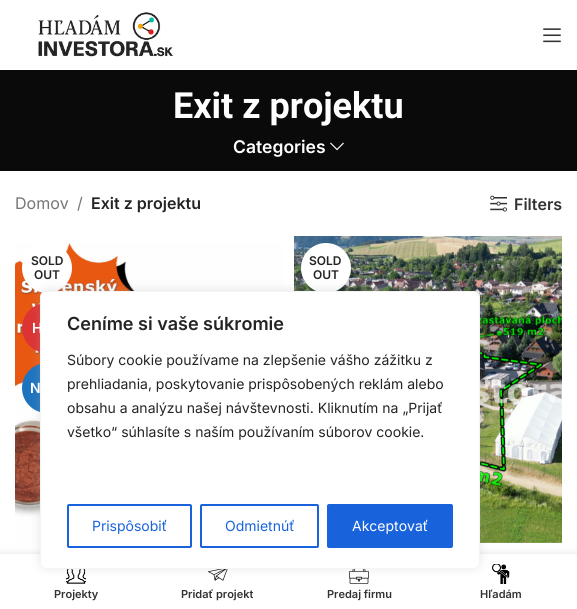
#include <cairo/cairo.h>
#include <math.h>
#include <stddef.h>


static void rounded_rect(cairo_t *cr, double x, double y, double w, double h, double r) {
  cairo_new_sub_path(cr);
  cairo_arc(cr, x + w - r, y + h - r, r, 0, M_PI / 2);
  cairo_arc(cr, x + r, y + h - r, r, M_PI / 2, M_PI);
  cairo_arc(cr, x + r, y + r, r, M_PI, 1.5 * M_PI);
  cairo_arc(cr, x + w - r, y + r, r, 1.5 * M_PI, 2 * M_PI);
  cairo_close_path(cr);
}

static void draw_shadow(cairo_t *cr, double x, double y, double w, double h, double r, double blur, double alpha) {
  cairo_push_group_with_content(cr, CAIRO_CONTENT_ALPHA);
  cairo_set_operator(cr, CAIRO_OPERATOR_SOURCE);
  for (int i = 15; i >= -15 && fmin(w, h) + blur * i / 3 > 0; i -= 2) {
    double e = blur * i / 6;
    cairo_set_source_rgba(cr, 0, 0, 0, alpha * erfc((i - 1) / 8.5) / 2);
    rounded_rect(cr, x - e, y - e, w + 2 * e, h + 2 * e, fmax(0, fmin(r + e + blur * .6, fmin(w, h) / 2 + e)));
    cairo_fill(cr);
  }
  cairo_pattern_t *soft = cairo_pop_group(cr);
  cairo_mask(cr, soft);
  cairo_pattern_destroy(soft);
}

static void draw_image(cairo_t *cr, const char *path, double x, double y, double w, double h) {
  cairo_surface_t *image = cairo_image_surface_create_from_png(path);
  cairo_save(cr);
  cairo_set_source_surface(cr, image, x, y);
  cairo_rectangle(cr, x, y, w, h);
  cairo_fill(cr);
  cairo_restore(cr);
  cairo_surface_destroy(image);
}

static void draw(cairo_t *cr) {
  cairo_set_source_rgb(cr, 1, 1, 1);
  cairo_paint(cr);
  draw_image(cr, "images/1.png", 38, 12, 135, 45);
  draw_image(cr, "images/2.png", 543, 28, 18, 15);
  cairo_set_source_rgb(cr, 10 / 255.0, 10 / 255.0, 10 / 255.0);
  cairo_rectangle(cr, 0, 70, 577, 101);
  cairo_fill(cr);
  draw_image(cr, "images/3.png", 330, 142, 14, 9);
  draw_image(cr, "images/4.png", 490, 195, 17, 17);
  draw_image(cr, "images/5.png", 15, 243, 269, 300);
  cairo_set_source_rgb(cr, 1, 1, 1);
  cairo_arc(cr, 47, 268, 25, 0, 2 * M_PI);
  cairo_fill(cr);
  cairo_set_source_rgb(cr, 221 / 255.0, 51 / 255.0, 51 / 255.0);
  cairo_arc(cr, 47, 328, 25, 0, 2 * M_PI);
  cairo_fill(cr);
  cairo_set_source_rgb(cr, 30 / 255.0, 115 / 255.0, 190 / 255.0);
  cairo_arc(cr, 47, 388, 25, 0, 2 * M_PI);
  cairo_fill(cr);
  draw_image(cr, "images/6.png", 294, 236, 268, 307);
  cairo_set_source_rgb(cr, 1, 1, 1);
  cairo_arc(cr, 326, 268, 25, 0, 2 * M_PI);
  cairo_fill(cr);
  cairo_set_source_rgb(cr, 0, 0, 0);
  draw_shadow(cr, 0, 554, 577, 55, 0, 4.5, 0.12);
  cairo_set_source_rgb(cr, 1, 1, 1);
  cairo_rectangle(cr, 0, 554, 577, 55);
  cairo_fill(cr);
  draw_image(cr, "images/7.png", 66, 569, 20, 15);
  draw_image(cr, "images/8.png", 208, 569, 20, 12);
  draw_image(cr, "images/9.png", 349, 569, 20, 15);
  draw_image(cr, "images/10.png", 492, 564, 18, 20);
  cairo_set_source_rgb(cr, 172 / 255.0, 171 / 255.0, 171 / 255.0);
  draw_shadow(cr, 40, 290, 440, 278, 6, 5, 0.3);
  cairo_set_source_rgb(cr, 1, 1, 1);
  rounded_rect(cr, 40.5, 291.5, 439, 277, 5.5);
  cairo_fill_preserve(cr);
  cairo_set_source_rgb(cr, 244 / 255.0, 244 / 255.0, 244 / 255.0);
  cairo_set_line_width(cr, 1);
  cairo_stroke(cr);
  rounded_rect(cr, 68, 505, 123, 42, 1);
  cairo_set_source_rgb(cr, 24 / 255.0, 99 / 255.0, 220 / 255.0);
  cairo_set_line_width(cr, 2);
  cairo_stroke(cr);
  rounded_rect(cr, 201, 505, 117, 42, 1);
  cairo_stroke(cr);
  rounded_rect(cr, 328, 505, 124, 42, 1);
  cairo_fill_preserve(cr);
  cairo_stroke(cr);
  cairo_select_font_face(cr, "Roboto", CAIRO_FONT_SLANT_NORMAL, CAIRO_FONT_WEIGHT_BOLD);
  cairo_set_font_size(cr, 36);
  cairo_set_source_rgb(cr, 1, 1, 1);
  cairo_move_to(cr, 173, 118);
  cairo_show_text(cr, "Exit z projektu");
  cairo_select_font_face(cr, "Inter SemiBold", CAIRO_FONT_SLANT_NORMAL, CAIRO_FONT_WEIGHT_NORMAL);
  cairo_set_font_size(cr, 17.5);
  cairo_move_to(cr, 233, 153);
  cairo_show_text(cr, "Categories");
  cairo_select_font_face(cr, "Inter", CAIRO_FONT_SLANT_NORMAL, CAIRO_FONT_WEIGHT_NORMAL);
  cairo_set_font_size(cr, 16);
  cairo_set_source_rgb(cr, 118 / 255.0, 118 / 255.0, 118 / 255.0);
  cairo_move_to(cr, 15, 209);
  cairo_show_text(cr, "Domov");
  cairo_move_to(cr, 77, 209);
  cairo_show_text(cr, "/");
  cairo_select_font_face(cr, "Inter SemiBold", CAIRO_FONT_SLANT_NORMAL, CAIRO_FONT_WEIGHT_NORMAL);
  cairo_set_source_rgb(cr, 36 / 255.0, 36 / 255.0, 36 / 255.0);
  cairo_move_to(cr, 91, 209);
  cairo_show_text(cr, "Exit z projektu");
  cairo_set_source_rgb(cr, 51 / 255.0, 51 / 255.0, 51 / 255.0);
  cairo_move_to(cr, 514, 210);
  cairo_show_text(cr, "Filters");
  cairo_set_font_size(cr, 12);
  cairo_set_source_rgb(cr, 36 / 255.0, 36 / 255.0, 36 / 255.0);
  cairo_move_to(cr, 31, 265);
  cairo_show_text(cr, "SOLD");
  cairo_move_to(cr, 34, 279);
  cairo_show_text(cr, "OUT");
  cairo_set_font_size(cr, 14);
  cairo_set_source_rgb(cr, 1, 1, 1);
  cairo_move_to(cr, 32, 333);
  cairo_show_text(cr, "H");
  cairo_move_to(cr, 30, 393);
  cairo_show_text(cr, "N");
  cairo_set_font_size(cr, 12);
  cairo_set_source_rgb(cr, 36 / 255.0, 36 / 255.0, 36 / 255.0);
  cairo_move_to(cr, 309, 265);
  cairo_show_text(cr, "SOLD");
  cairo_move_to(cr, 313, 279);
  cairo_show_text(cr, "OUT");
  cairo_set_font_size(cr, 18);
  cairo_move_to(cr, 67, 330);
  cairo_show_text(cr, "Ceníme si vaše súkromie");
  cairo_select_font_face(cr, "Inter", CAIRO_FONT_SLANT_NORMAL, CAIRO_FONT_WEIGHT_NORMAL);
  cairo_set_font_size(cr, 14);
  cairo_move_to(cr, 67, 365);
  cairo_show_text(cr, "Súbory cookie používame na zlepšenie vášho zážitku z");
  cairo_move_to(cr, 67, 389);
  cairo_show_text(cr, "prehliadania, poskytovanie prispôsobených reklám alebo");
  cairo_move_to(cr, 67, 413);
  cairo_show_text(cr, "obsahu a analýzu našej návštevnosti. Kliknutím na „Prijať");
  cairo_move_to(cr, 67, 437);
  cairo_show_text(cr, "všetko“ súhlasíte s naším používaním súborov cookie.");
  cairo_set_source_rgb(cr, 24 / 255.0, 99 / 255.0, 220 / 255.0);
  cairo_move_to(cr, 92, 531);
  cairo_show_text(cr, "Prispôsobiť");
  cairo_move_to(cr, 225, 531);
  cairo_show_text(cr, "Odmietnúť");
  cairo_set_source_rgb(cr, 1, 1, 1);
  cairo_move_to(cr, 352, 531);
  cairo_show_text(cr, "Akceptovať");
  cairo_select_font_face(cr, "Inter SemiBold", CAIRO_FONT_SLANT_NORMAL, CAIRO_FONT_WEIGHT_NORMAL);
  cairo_set_font_size(cr, 11);
  cairo_set_source_rgb(cr, 51 / 255.0, 51 / 255.0, 51 / 255.0);
  cairo_move_to(cr, 54, 598);
  cairo_show_text(cr, "Projekty");
  cairo_move_to(cr, 181, 598);
  cairo_show_text(cr, "Pridať projekt");
  cairo_move_to(cr, 327, 598);
  cairo_show_text(cr, "Predaj firmu");
  cairo_move_to(cr, 480, 598);
  cairo_show_text(cr, "Hľadám");
}

int main(void) {
  cairo_surface_t *surface = cairo_image_surface_create(CAIRO_FORMAT_RGB24, 577, 609);
  cairo_t *cr = cairo_create(surface);
  cairo_font_options_t *options = cairo_font_options_create();
  cairo_font_options_set_hint_metrics(options, CAIRO_HINT_METRICS_OFF);
  cairo_font_options_set_hint_style(options, CAIRO_HINT_STYLE_NONE);
  cairo_set_font_options(cr, options);
  cairo_set_miter_limit(cr, 4);
  draw(cr);
  cairo_surface_write_to_png(surface, "out.png");
  cairo_font_options_destroy(options);
  cairo_destroy(cr);
  cairo_surface_destroy(surface);
  return 0;
}
